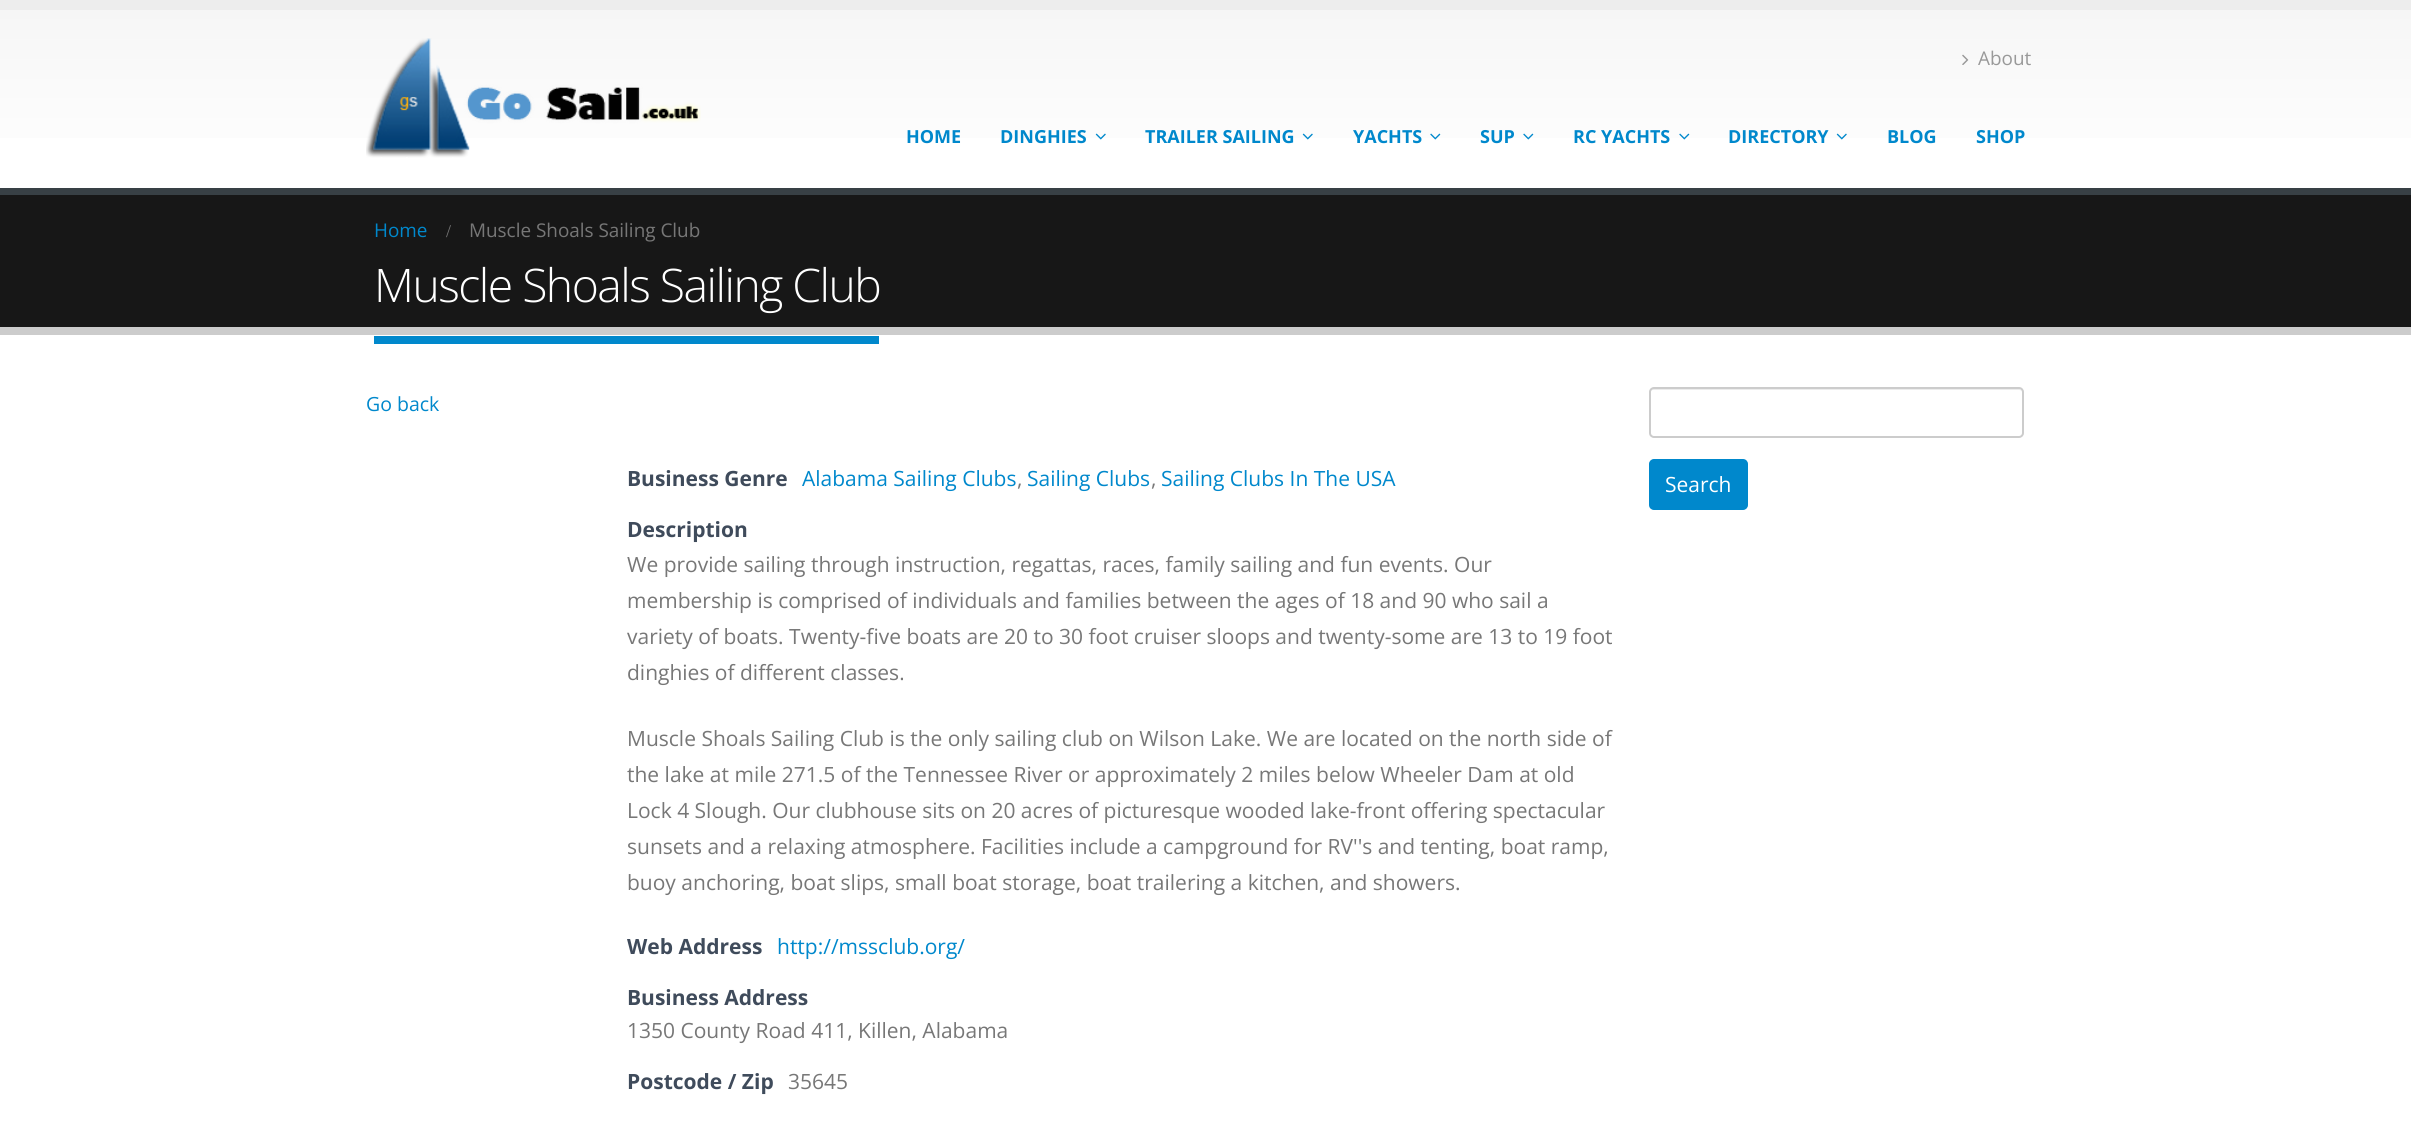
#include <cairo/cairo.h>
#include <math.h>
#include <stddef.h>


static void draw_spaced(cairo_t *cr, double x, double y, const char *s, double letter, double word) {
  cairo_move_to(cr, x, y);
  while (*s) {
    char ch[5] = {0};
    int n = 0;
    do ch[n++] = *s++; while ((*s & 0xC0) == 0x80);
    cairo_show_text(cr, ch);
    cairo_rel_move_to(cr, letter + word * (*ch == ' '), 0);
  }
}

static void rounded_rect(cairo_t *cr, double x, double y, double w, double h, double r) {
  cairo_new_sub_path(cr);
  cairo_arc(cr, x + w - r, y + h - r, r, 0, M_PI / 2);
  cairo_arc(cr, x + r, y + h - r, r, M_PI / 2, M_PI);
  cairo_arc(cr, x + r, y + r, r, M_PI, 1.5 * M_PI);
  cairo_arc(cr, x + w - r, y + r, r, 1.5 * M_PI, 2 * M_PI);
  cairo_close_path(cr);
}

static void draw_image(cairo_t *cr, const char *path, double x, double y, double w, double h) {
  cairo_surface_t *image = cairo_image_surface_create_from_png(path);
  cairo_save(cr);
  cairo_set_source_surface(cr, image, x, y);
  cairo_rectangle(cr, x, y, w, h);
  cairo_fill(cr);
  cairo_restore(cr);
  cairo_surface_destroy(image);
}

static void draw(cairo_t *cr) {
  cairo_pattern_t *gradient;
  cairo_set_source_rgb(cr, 1, 1, 1);
  cairo_paint(cr);
  cairo_set_source_rgb(cr, 237 / 255.0, 237 / 255.0, 237 / 255.0);
  cairo_rectangle(cr, 0, 0, 2411, 10);
  cairo_fill(cr);
  gradient = cairo_pattern_create_linear(1206, 9, 1206, 188);
  cairo_pattern_add_color_stop_rgba(gradient, 0, 246 / 255.0, 246 / 255.0, 246 / 255.0, 1);
  cairo_pattern_add_color_stop_rgba(gradient, 1, 1, 1, 1, 1);
  cairo_set_source(cr, gradient);
  cairo_pattern_destroy(gradient);
  cairo_rectangle(cr, 0, 10, 2411, 128);
  cairo_fill(cr);
  draw_image(cr, "images/1.png", 366, 38, 335, 120);
  draw_image(cr, "images/2.png", 1962, 54, 7, 11);
  draw_image(cr, "images/3.png", 1095, 133, 11, 7);
  draw_image(cr, "images/3.png", 1302, 133, 11, 7);
  draw_image(cr, "images/4.png", 1430, 133, 11, 7);
  draw_image(cr, "images/4.png", 1523, 133, 11, 7);
  draw_image(cr, "images/4.png", 1679, 133, 11, 7);
  draw_image(cr, "images/3.png", 1836, 133, 11, 7);
  cairo_set_source_rgb(cr, 23 / 255.0, 23 / 255.0, 23 / 255.0);
  cairo_rectangle(cr, 0, 195, 2411, 132);
  cairo_fill(cr);
  cairo_set_source_rgb(cr, 56 / 255.0, 64 / 255.0, 69 / 255.0);
  cairo_rectangle(cr, 0, 188, 2411, 7);
  cairo_fill(cr);
  cairo_set_source_rgb(cr, 204 / 255.0, 204 / 255.0, 204 / 255.0);
  cairo_rectangle(cr, 0, 327, 2411, 8);
  cairo_fill(cr);
  cairo_set_source_rgb(cr, 0, 136 / 255.0, 204 / 255.0);
  cairo_rectangle(cr, 374, 336, 505, 8);
  cairo_fill(cr);
  cairo_set_source_rgb(cr, 236 / 255.0, 236 / 255.0, 236 / 255.0);
  cairo_new_path(cr);
  cairo_move_to(cr, 1653, 390);
  cairo_line_to(cr, 2019, 390);
  cairo_curve_to(cr, 2021, 390, 2022, 391, 2022, 393);
  cairo_curve_to(cr, 2022, 391, 2021, 389, 2019, 389);
  cairo_line_to(cr, 1653, 389);
  cairo_line_to(cr, 1651, 390);
  cairo_line_to(cr, 1650, 393);
  cairo_curve_to(cr, 1650, 391, 1651, 390, 1653, 390);
  cairo_close_path(cr);
  cairo_fill(cr);
  rounded_rect(cr, 1650, 388, 373, 49, 4);
  cairo_set_source_rgb(cr, 204 / 255.0, 204 / 255.0, 204 / 255.0);
  cairo_stroke(cr);
  cairo_set_source_rgb(cr, 0, 136 / 255.0, 204 / 255.0);
  rounded_rect(cr, 1650, 460, 97, 49, 4);
  cairo_fill_preserve(cr);
  cairo_stroke(cr);
  cairo_select_font_face(cr, "Open Sans", CAIRO_FONT_SLANT_NORMAL, CAIRO_FONT_WEIGHT_NORMAL);
  cairo_set_font_size(cr, 18.9);
  cairo_set_source_rgb(cr, 153 / 255.0, 153 / 255.0, 153 / 255.0);
  cairo_move_to(cr, 1978, 65);
  cairo_show_text(cr, "About");
  cairo_select_font_face(cr, "Open Sans", CAIRO_FONT_SLANT_NORMAL, CAIRO_FONT_WEIGHT_BOLD);
  cairo_set_font_size(cr, 18);
  cairo_set_source_rgb(cr, 0, 136 / 255.0, 204 / 255.0);
  cairo_move_to(cr, 906, 143);
  cairo_show_text(cr, "HOME");
  cairo_move_to(cr, 1000, 143);
  cairo_show_text(cr, "DINGHIES");
  cairo_move_to(cr, 1145, 143);
  cairo_show_text(cr, "TRAILER SAILING");
  cairo_move_to(cr, 1353, 143);
  cairo_show_text(cr, "YACHTS");
  cairo_move_to(cr, 1480, 143);
  cairo_show_text(cr, "SUP");
  cairo_move_to(cr, 1573, 143);
  cairo_show_text(cr, "RC YACHTS");
  cairo_move_to(cr, 1728, 143);
  cairo_show_text(cr, "DIRECTORY");
  cairo_move_to(cr, 1887, 143);
  cairo_show_text(cr, "BLOG");
  cairo_move_to(cr, 1976, 143);
  cairo_show_text(cr, "SHOP");
  cairo_select_font_face(cr, "Open Sans", CAIRO_FONT_SLANT_NORMAL, CAIRO_FONT_WEIGHT_NORMAL);
  cairo_set_font_size(cr, 18.9);
  cairo_move_to(cr, 374, 237);
  cairo_show_text(cr, "Home");
  cairo_select_font_face(cr, "Liberation Serif", CAIRO_FONT_SLANT_NORMAL, CAIRO_FONT_WEIGHT_NORMAL);
  cairo_set_font_size(cr, 18);
  cairo_set_source_rgb(cr, 119 / 255.0, 119 / 255.0, 119 / 255.0);
  cairo_move_to(cr, 446, 237);
  cairo_show_text(cr, "/");
  cairo_select_font_face(cr, "Open Sans", CAIRO_FONT_SLANT_NORMAL, CAIRO_FONT_WEIGHT_NORMAL);
  cairo_set_font_size(cr, 18.9);
  cairo_move_to(cr, 469, 237);
  cairo_show_text(cr, "Muscle Shoals Sailing Club");
  cairo_select_font_face(cr, "Open Sans Light", CAIRO_FONT_SLANT_NORMAL, CAIRO_FONT_WEIGHT_NORMAL);
  cairo_set_font_size(cr, 46.25);
  cairo_set_source_rgb(cr, 1, 1, 1);
  draw_spaced(cr, 374, 302, "Muscle Shoals Sailing Club", -1.5, 0);
  cairo_select_font_face(cr, "Open Sans", CAIRO_FONT_SLANT_NORMAL, CAIRO_FONT_WEIGHT_NORMAL);
  cairo_set_font_size(cr, 19.5);
  cairo_set_source_rgb(cr, 0, 136 / 255.0, 204 / 255.0);
  cairo_move_to(cr, 366, 411);
  cairo_show_text(cr, "Go back");
  cairo_select_font_face(cr, "Open Sans", CAIRO_FONT_SLANT_NORMAL, CAIRO_FONT_WEIGHT_BOLD);
  cairo_set_font_size(cr, 21);
  cairo_set_source_rgb(cr, 63 / 255.0, 75 / 255.0, 91 / 255.0);
  cairo_move_to(cr, 627, 486);
  cairo_show_text(cr, "Business Genre");
  cairo_select_font_face(cr, "Open Sans", CAIRO_FONT_SLANT_NORMAL, CAIRO_FONT_WEIGHT_NORMAL);
  cairo_set_source_rgb(cr, 0, 136 / 255.0, 204 / 255.0);
  cairo_move_to(cr, 802, 486);
  cairo_show_text(cr, "Alabama Sailing Clubs");
  cairo_set_source_rgb(cr, 119 / 255.0, 119 / 255.0, 119 / 255.0);
  cairo_move_to(cr, 1017, 486);
  cairo_show_text(cr, ",");
  cairo_set_source_rgb(cr, 0, 136 / 255.0, 204 / 255.0);
  cairo_move_to(cr, 1027, 486);
  cairo_show_text(cr, "Sailing Clubs");
  cairo_set_source_rgb(cr, 119 / 255.0, 119 / 255.0, 119 / 255.0);
  cairo_move_to(cr, 1151, 486);
  cairo_show_text(cr, ",");
  cairo_set_source_rgb(cr, 0, 136 / 255.0, 204 / 255.0);
  cairo_move_to(cr, 1161, 486);
  cairo_show_text(cr, "Sailing Clubs In The USA");
  cairo_select_font_face(cr, "Open Sans", CAIRO_FONT_SLANT_NORMAL, CAIRO_FONT_WEIGHT_BOLD);
  cairo_set_source_rgb(cr, 63 / 255.0, 75 / 255.0, 91 / 255.0);
  cairo_move_to(cr, 627, 537);
  cairo_show_text(cr, "Description");
  cairo_select_font_face(cr, "Open Sans", CAIRO_FONT_SLANT_NORMAL, CAIRO_FONT_WEIGHT_NORMAL);
  cairo_set_source_rgb(cr, 119 / 255.0, 119 / 255.0, 119 / 255.0);
  cairo_move_to(cr, 627, 572);
  cairo_show_text(cr, "We provide sailing through instruction, regattas, races, family sailing and fun events. Our");
  cairo_move_to(cr, 627, 608);
  cairo_show_text(cr, "membership is comprised of individuals and families between the ages of 18 and 90 who sail a");
  cairo_move_to(cr, 627, 644);
  cairo_show_text(cr, "variety of boats. Twenty-five boats are 20 to 30 foot cruiser sloops and twenty-some are 13 to 19 foot");
  cairo_move_to(cr, 627, 680);
  cairo_show_text(cr, "dinghies of different classes.");
  cairo_move_to(cr, 627, 746);
  cairo_show_text(cr, "Muscle Shoals Sailing Club is the only sailing club on Wilson Lake. We are located on the north side of");
  cairo_move_to(cr, 627, 782);
  cairo_show_text(cr, "the lake at mile 271.5 of the Tennessee River or approximately 2 miles below Wheeler Dam at old");
  cairo_move_to(cr, 627, 818);
  cairo_show_text(cr, "Lock 4 Slough. Our clubhouse sits on 20 acres of picturesque wooded lake-front offering spectacular");
  cairo_move_to(cr, 627, 854);
  cairo_show_text(cr, "sunsets and a relaxing atmosphere. Facilities include a campground for RV''s and tenting, boat ramp,");
  cairo_move_to(cr, 627, 890);
  cairo_show_text(cr, "buoy anchoring, boat slips, small boat storage, boat trailering a kitchen, and showers.");
  cairo_select_font_face(cr, "Open Sans", CAIRO_FONT_SLANT_NORMAL, CAIRO_FONT_WEIGHT_BOLD);
  cairo_set_source_rgb(cr, 63 / 255.0, 75 / 255.0, 91 / 255.0);
  cairo_move_to(cr, 627, 954);
  cairo_show_text(cr, "Web Address");
  cairo_select_font_face(cr, "Open Sans", CAIRO_FONT_SLANT_NORMAL, CAIRO_FONT_WEIGHT_NORMAL);
  cairo_set_source_rgb(cr, 0, 136 / 255.0, 204 / 255.0);
  cairo_move_to(cr, 777, 954);
  cairo_show_text(cr, "http://mssclub.org/");
  cairo_select_font_face(cr, "Open Sans", CAIRO_FONT_SLANT_NORMAL, CAIRO_FONT_WEIGHT_BOLD);
  cairo_set_source_rgb(cr, 63 / 255.0, 75 / 255.0, 91 / 255.0);
  cairo_move_to(cr, 627, 1005);
  cairo_show_text(cr, "Business Address");
  cairo_select_font_face(cr, "Open Sans", CAIRO_FONT_SLANT_NORMAL, CAIRO_FONT_WEIGHT_NORMAL);
  cairo_set_source_rgb(cr, 119 / 255.0, 119 / 255.0, 119 / 255.0);
  cairo_move_to(cr, 627, 1038);
  cairo_show_text(cr, "1350 County Road 411, Killen, Alabama");
  cairo_select_font_face(cr, "Open Sans", CAIRO_FONT_SLANT_NORMAL, CAIRO_FONT_WEIGHT_BOLD);
  cairo_set_source_rgb(cr, 63 / 255.0, 75 / 255.0, 91 / 255.0);
  cairo_move_to(cr, 627, 1089);
  cairo_show_text(cr, "Postcode / Zip");
  cairo_select_font_face(cr, "Open Sans", CAIRO_FONT_SLANT_NORMAL, CAIRO_FONT_WEIGHT_NORMAL);
  cairo_set_source_rgb(cr, 119 / 255.0, 119 / 255.0, 119 / 255.0);
  cairo_move_to(cr, 788, 1089);
  cairo_show_text(cr, "35645");
  cairo_set_source_rgb(cr, 1, 1, 1);
  cairo_move_to(cr, 1665, 492);
  cairo_show_text(cr, "Search");
}

int main(void) {
  cairo_surface_t *surface = cairo_image_surface_create(CAIRO_FORMAT_RGB24, 2411, 1121);
  cairo_t *cr = cairo_create(surface);
  cairo_font_options_t *options = cairo_font_options_create();
  cairo_font_options_set_hint_metrics(options, CAIRO_HINT_METRICS_OFF);
  cairo_font_options_set_hint_style(options, CAIRO_HINT_STYLE_NONE);
  cairo_set_font_options(cr, options);
  cairo_set_miter_limit(cr, 4);
  draw(cr);
  cairo_surface_write_to_png(surface, "out.png");
  cairo_font_options_destroy(options);
  cairo_destroy(cr);
  cairo_surface_destroy(surface);
  return 0;
}
